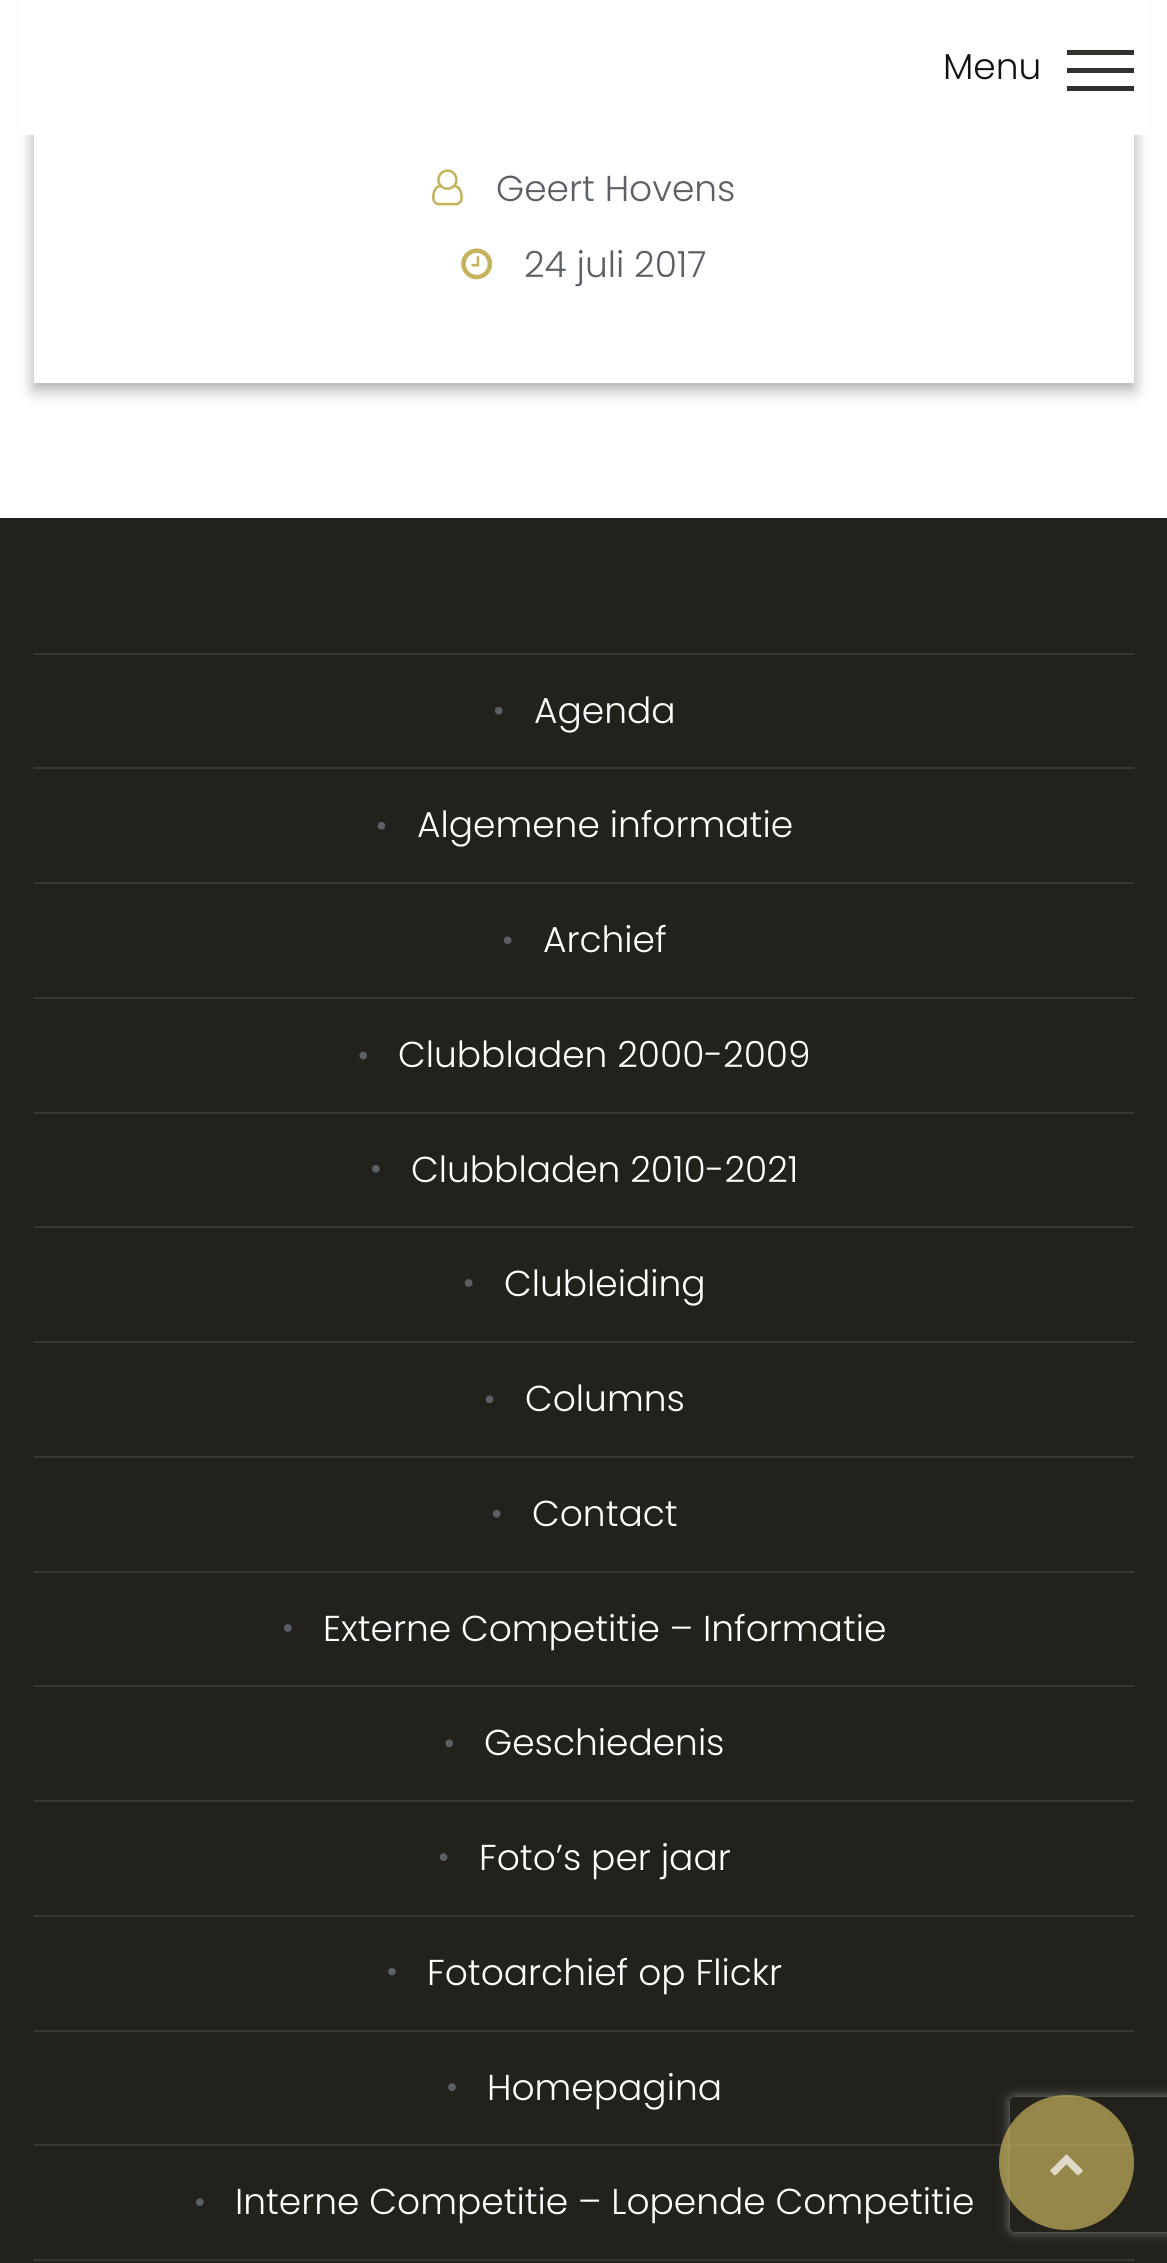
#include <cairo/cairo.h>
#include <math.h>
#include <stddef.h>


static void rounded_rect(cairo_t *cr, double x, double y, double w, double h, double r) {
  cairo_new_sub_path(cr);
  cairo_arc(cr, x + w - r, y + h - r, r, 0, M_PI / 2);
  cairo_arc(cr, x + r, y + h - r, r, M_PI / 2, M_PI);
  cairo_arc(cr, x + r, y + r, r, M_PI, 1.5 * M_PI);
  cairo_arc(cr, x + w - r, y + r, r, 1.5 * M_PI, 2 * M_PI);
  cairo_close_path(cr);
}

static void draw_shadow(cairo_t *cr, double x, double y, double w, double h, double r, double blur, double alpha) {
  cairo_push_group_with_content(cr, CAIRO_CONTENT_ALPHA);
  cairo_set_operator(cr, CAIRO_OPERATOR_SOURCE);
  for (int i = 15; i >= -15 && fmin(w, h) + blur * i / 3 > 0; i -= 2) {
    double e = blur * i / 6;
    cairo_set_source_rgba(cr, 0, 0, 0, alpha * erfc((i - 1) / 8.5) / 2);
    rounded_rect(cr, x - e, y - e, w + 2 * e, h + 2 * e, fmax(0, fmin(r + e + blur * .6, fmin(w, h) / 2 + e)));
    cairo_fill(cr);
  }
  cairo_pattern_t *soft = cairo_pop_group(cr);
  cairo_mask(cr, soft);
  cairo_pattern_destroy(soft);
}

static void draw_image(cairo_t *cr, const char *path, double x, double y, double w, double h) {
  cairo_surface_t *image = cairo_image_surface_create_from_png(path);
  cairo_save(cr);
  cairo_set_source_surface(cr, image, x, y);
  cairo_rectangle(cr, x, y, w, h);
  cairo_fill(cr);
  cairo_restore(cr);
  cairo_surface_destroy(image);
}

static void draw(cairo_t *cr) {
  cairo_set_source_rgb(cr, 1, 1, 1);
  cairo_paint(cr);
  cairo_set_source_rgb(cr, 0, 0, 0);
  draw_shadow(cr, 34, -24, 1100, 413, 0, 8, 0.35);
  cairo_set_source_rgb(cr, 1, 1, 1);
  cairo_rectangle(cr, 34, 0, 1100, 383);
  cairo_fill(cr);
  cairo_set_source_rgb(cr, 222 / 255.0, 223 / 255.0, 224 / 255.0);
  cairo_rectangle(cr, 124, 92, 920, 2);
  cairo_fill(cr);
  cairo_set_source_rgba(cr, 1, 1, 1, 0.98);
  cairo_rectangle(cr, 19, 0, 1130, 135);
  cairo_fill(cr);
  cairo_set_source_rgb(cr, 49 / 255.0, 48 / 255.0, 44 / 255.0);
  cairo_rectangle(cr, 1067, 50, 67, 5);
  cairo_fill(cr);
  cairo_rectangle(cr, 1067, 86, 67, 5);
  cairo_fill(cr);
  cairo_rectangle(cr, 1067, 68, 67, 5);
  cairo_fill(cr);
  draw_image(cr, "images/1.png", 432, 169, 31, 37);
  draw_image(cr, "images/2.png", 461, 248, 32, 32);
  cairo_set_source_rgb(cr, 34 / 255.0, 33 / 255.0, 28 / 255.0);
  cairo_rectangle(cr, 0, 518, 1167, 1745);
  cairo_fill(cr);
  cairo_set_source_rgb(cr, 56 / 255.0, 55 / 255.0, 51 / 255.0);
  cairo_rectangle(cr, 34, 653, 1100, 2);
  cairo_fill(cr);
  cairo_rectangle(cr, 34, 767, 1100, 2);
  cairo_fill(cr);
  draw_image(cr, "images/3.png", 494, 706, 9, 9);
  cairo_rectangle(cr, 34, 882, 1100, 2);
  cairo_fill(cr);
  draw_image(cr, "images/4.png", 377, 821, 9, 9);
  cairo_rectangle(cr, 34, 997, 1100, 2);
  cairo_fill(cr);
  draw_image(cr, "images/5.png", 503, 936, 9, 9);
  cairo_rectangle(cr, 34, 1112, 1100, 2);
  cairo_fill(cr);
  draw_image(cr, "images/6.png", 359, 1051, 8, 9);
  cairo_rectangle(cr, 34, 1226, 1100, 2);
  cairo_fill(cr);
  draw_image(cr, "images/7.png", 372, 1165, 8, 8);
  cairo_rectangle(cr, 34, 1341, 1100, 2);
  cairo_fill(cr);
  draw_image(cr, "images/8.png", 464, 1279, 9, 8);
  cairo_rectangle(cr, 34, 1456, 1100, 2);
  cairo_fill(cr);
  draw_image(cr, "images/9.png", 485, 1395, 9, 9);
  cairo_rectangle(cr, 34, 1571, 1100, 2);
  cairo_fill(cr);
  draw_image(cr, "images/10.png", 492, 1509, 9, 9);
  cairo_rectangle(cr, 34, 1685, 1100, 2);
  cairo_fill(cr);
  draw_image(cr, "images/11.png", 284, 1624, 8, 8);
  cairo_rectangle(cr, 34, 1800, 1100, 2);
  cairo_fill(cr);
  draw_image(cr, "images/12.png", 445, 1739, 9, 9);
  cairo_rectangle(cr, 34, 1915, 1100, 2);
  cairo_fill(cr);
  draw_image(cr, "images/13.png", 439, 1853, 9, 8);
  cairo_rectangle(cr, 34, 2030, 1100, 2);
  cairo_fill(cr);
  draw_image(cr, "images/14.png", 388, 1967, 8, 9);
  cairo_rectangle(cr, 34, 2144, 1100, 2);
  cairo_fill(cr);
  draw_image(cr, "images/15.png", 448, 2083, 8, 8);
  cairo_rectangle(cr, 34, 2259, 1100, 2);
  cairo_fill(cr);
  draw_image(cr, "images/16.png", 196, 2198, 8, 8);
  cairo_save(cr);
  cairo_set_fill_rule(cr, CAIRO_FILL_RULE_EVEN_ODD);
  cairo_new_path(cr);
  cairo_move_to(cr, 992, 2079);
  cairo_line_to(cr, 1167, 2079);
  cairo_line_to(cr, 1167, 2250);
  cairo_line_to(cr, 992, 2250);
  cairo_close_path(cr);
  cairo_move_to(cr, 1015, 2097);
  cairo_line_to(cr, 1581, 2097);
  cairo_curve_to(cr, 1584, 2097, 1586, 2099, 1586, 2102);
  cairo_line_to(cr, 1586, 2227);
  cairo_curve_to(cr, 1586, 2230, 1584, 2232, 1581, 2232);
  cairo_line_to(cr, 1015, 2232);
  cairo_curve_to(cr, 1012, 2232, 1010, 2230, 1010, 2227);
  cairo_line_to(cr, 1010, 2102);
  cairo_curve_to(cr, 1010, 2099, 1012, 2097, 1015, 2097);
  cairo_close_path(cr);
  cairo_clip(cr);
  cairo_set_source_rgb(cr, 128 / 255.0, 128 / 255.0, 128 / 255.0);
  draw_shadow(cr, 1010, 2097, 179, 135, 5, 5.5, 1);
  cairo_restore(cr);
  cairo_set_source_rgba(cr, 198 / 255.0, 177 / 255.0, 93 / 255.0, 0.7);
  cairo_arc(cr, 1066.5, 2162.5, 67.5, 0, 2 * M_PI);
  cairo_fill(cr);
  draw_image(cr, "images/17.png", 1050, 2154, 33, 22);
  cairo_select_font_face(cr, "Poppins Light", CAIRO_FONT_SLANT_NORMAL, CAIRO_FONT_WEIGHT_NORMAL);
  cairo_set_font_size(cr, 36);
  cairo_set_source_rgb(cr, 18 / 255.0, 18 / 255.0, 18 / 255.0);
  cairo_move_to(cr, 943, 79);
  cairo_show_text(cr, "Menu");
  cairo_set_source_rgb(cr, 91 / 255.0, 95 / 255.0, 102 / 255.0);
  cairo_move_to(cr, 496, 201);
  cairo_show_text(cr, "Geert Hovens");
  cairo_move_to(cr, 524, 277);
  cairo_show_text(cr, "24 juli 2017");
  cairo_set_source_rgb(cr, 1, 1, 1);
  cairo_move_to(cr, 534, 723);
  cairo_show_text(cr, "Agenda");
  cairo_move_to(cr, 417, 837);
  cairo_show_text(cr, "Algemene informatie");
  cairo_move_to(cr, 543, 952);
  cairo_show_text(cr, "Archief");
  cairo_move_to(cr, 398, 1067);
  cairo_show_text(cr, "Clubbladen 2000-2009");
  cairo_move_to(cr, 411, 1182);
  cairo_show_text(cr, "Clubbladen 2010-2021");
  cairo_move_to(cr, 504, 1296);
  cairo_show_text(cr, "Clubleiding");
  cairo_move_to(cr, 525, 1411);
  cairo_show_text(cr, "Columns");
  cairo_move_to(cr, 532, 1526);
  cairo_show_text(cr, "Contact");
  cairo_move_to(cr, 323, 1641);
  cairo_show_text(cr, "Externe Competitie – Informatie");
  cairo_move_to(cr, 484, 1755);
  cairo_show_text(cr, "Geschiedenis");
  cairo_move_to(cr, 479, 1870);
  cairo_show_text(cr, "Foto’s per jaar");
  cairo_move_to(cr, 427, 1985);
  cairo_show_text(cr, "Fotoarchief op Flickr");
  cairo_move_to(cr, 487, 2100);
  cairo_show_text(cr, "Homepagina");
  cairo_move_to(cr, 235, 2214);
  cairo_show_text(cr, "Interne Competitie – Lopende Competitie");
}

int main(void) {
  cairo_surface_t *surface = cairo_image_surface_create(CAIRO_FORMAT_RGB24, 1167, 2263);
  cairo_t *cr = cairo_create(surface);
  cairo_font_options_t *options = cairo_font_options_create();
  cairo_font_options_set_hint_metrics(options, CAIRO_HINT_METRICS_OFF);
  cairo_font_options_set_hint_style(options, CAIRO_HINT_STYLE_NONE);
  cairo_set_font_options(cr, options);
  cairo_set_miter_limit(cr, 4);
  draw(cr);
  cairo_surface_write_to_png(surface, "out.png");
  cairo_font_options_destroy(options);
  cairo_destroy(cr);
  cairo_surface_destroy(surface);
  return 0;
}
